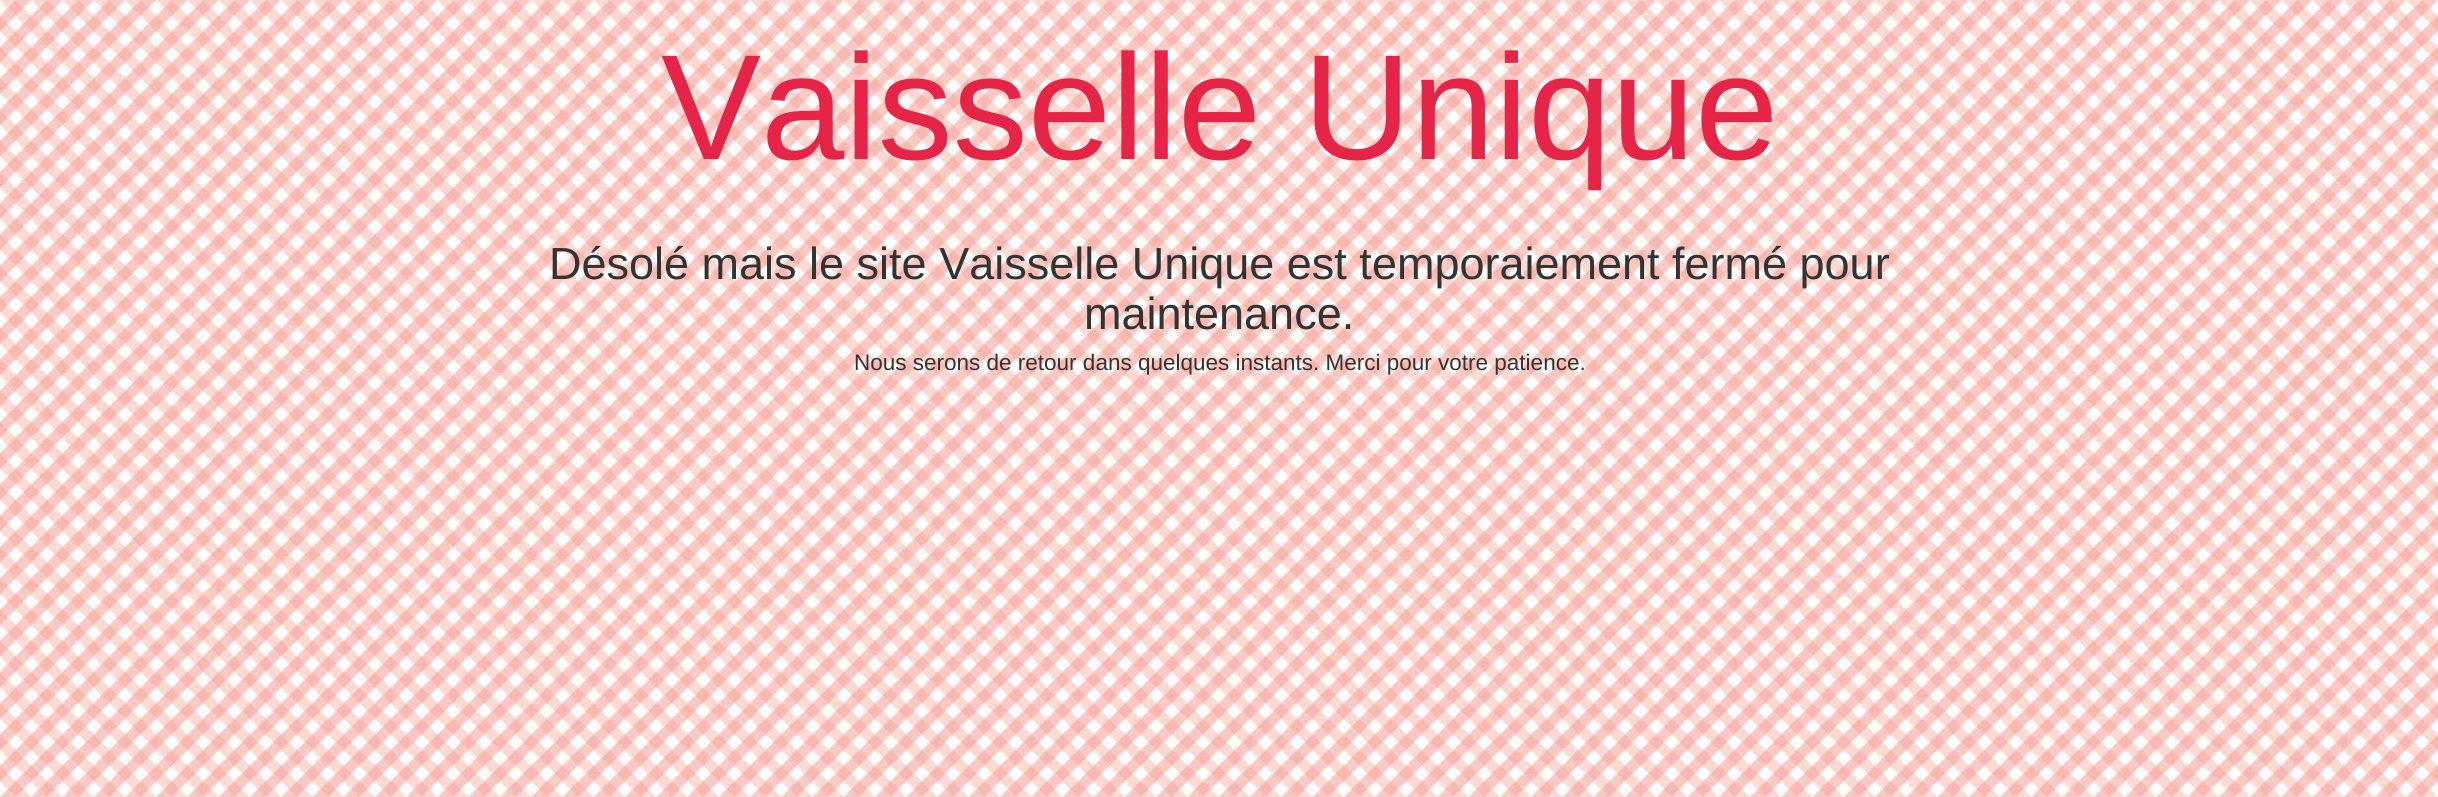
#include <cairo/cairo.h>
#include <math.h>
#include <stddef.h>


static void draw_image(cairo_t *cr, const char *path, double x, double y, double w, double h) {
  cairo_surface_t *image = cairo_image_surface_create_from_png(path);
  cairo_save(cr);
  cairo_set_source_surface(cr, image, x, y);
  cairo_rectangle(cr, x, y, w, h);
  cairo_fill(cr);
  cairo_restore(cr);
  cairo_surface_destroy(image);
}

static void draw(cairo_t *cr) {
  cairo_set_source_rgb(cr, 1, 1, 1);
  cairo_paint(cr);
  draw_image(cr, "images/1.png", 0, 388, 2438, 409);
  draw_image(cr, "images/2.png", 0, 0, 2438, 388);
  cairo_select_font_face(cr, "Liberation Sans", CAIRO_FONT_SLANT_NORMAL, CAIRO_FONT_WEIGHT_NORMAL);
  cairo_set_font_size(cr, 150);
  cairo_set_source_rgb(cr, 230 / 255.0, 36 / 255.0, 71 / 255.0);
  cairo_move_to(cr, 661, 159);
  cairo_show_text(cr, "Vaisselle Unique");
  cairo_set_font_size(cr, 45);
  cairo_set_source_rgb(cr, 51 / 255.0, 51 / 255.0, 51 / 255.0);
  cairo_move_to(cr, 549, 279);
  cairo_show_text(cr, "Désolé mais le site Vaisselle Unique est temporaiement fermé pour");
  cairo_move_to(cr, 1084, 329);
  cairo_show_text(cr, "maintenance.");
  cairo_set_font_size(cr, 22.5);
  cairo_move_to(cr, 854, 370);
  cairo_show_text(cr, "Nous serons de retour dans quelques instants. Merci pour votre patience.");
}

int main(void) {
  cairo_surface_t *surface = cairo_image_surface_create(CAIRO_FORMAT_RGB24, 2438, 797);
  cairo_t *cr = cairo_create(surface);
  cairo_font_options_t *options = cairo_font_options_create();
  cairo_font_options_set_hint_metrics(options, CAIRO_HINT_METRICS_OFF);
  cairo_font_options_set_hint_style(options, CAIRO_HINT_STYLE_NONE);
  cairo_set_font_options(cr, options);
  cairo_set_miter_limit(cr, 4);
  draw(cr);
  cairo_surface_write_to_png(surface, "out.png");
  cairo_font_options_destroy(options);
  cairo_destroy(cr);
  cairo_surface_destroy(surface);
  return 0;
}
